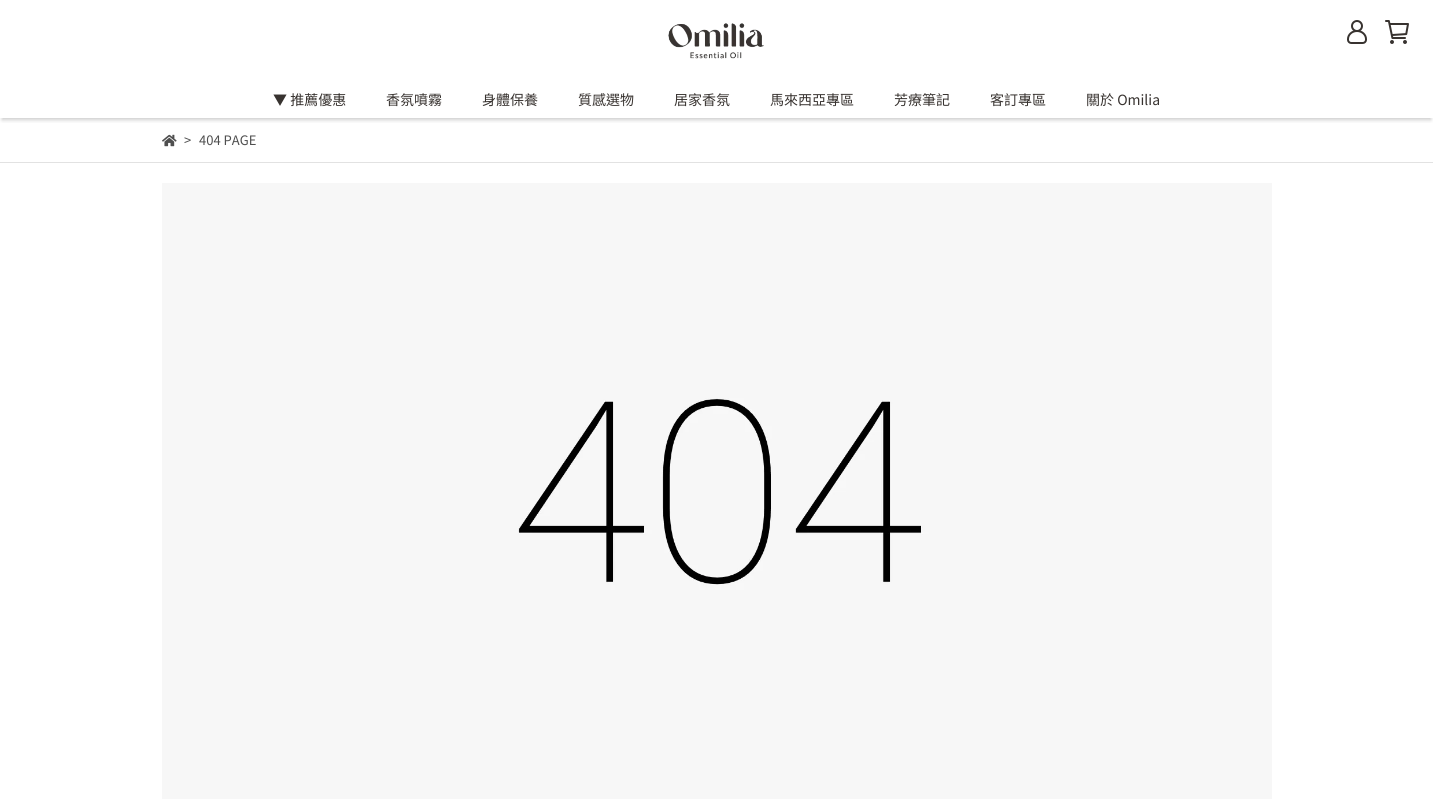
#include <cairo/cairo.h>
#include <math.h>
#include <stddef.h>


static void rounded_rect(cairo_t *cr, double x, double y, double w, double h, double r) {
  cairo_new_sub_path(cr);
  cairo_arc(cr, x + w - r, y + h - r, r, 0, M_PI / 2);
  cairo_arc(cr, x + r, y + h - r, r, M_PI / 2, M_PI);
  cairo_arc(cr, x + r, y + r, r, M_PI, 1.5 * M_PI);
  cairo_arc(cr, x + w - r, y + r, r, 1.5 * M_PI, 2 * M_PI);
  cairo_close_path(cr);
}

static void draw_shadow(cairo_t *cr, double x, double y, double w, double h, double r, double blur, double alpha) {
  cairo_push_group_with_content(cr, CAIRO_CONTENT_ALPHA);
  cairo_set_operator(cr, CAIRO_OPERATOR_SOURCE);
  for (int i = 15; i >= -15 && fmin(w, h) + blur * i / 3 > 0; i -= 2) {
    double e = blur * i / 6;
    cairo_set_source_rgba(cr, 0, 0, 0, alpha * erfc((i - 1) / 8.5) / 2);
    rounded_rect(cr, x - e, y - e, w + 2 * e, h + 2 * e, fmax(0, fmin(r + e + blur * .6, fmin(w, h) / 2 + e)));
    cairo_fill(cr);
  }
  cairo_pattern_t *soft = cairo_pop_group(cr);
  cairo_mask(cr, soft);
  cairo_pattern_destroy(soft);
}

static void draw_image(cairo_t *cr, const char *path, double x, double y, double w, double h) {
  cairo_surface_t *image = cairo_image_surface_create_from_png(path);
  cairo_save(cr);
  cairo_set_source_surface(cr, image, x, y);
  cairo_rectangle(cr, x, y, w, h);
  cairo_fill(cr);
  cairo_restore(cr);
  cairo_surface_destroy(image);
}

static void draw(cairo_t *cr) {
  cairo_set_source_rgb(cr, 1, 1, 1);
  cairo_paint(cr);
  draw_image(cr, "images/1.png", 668, 23, 96, 36);
  draw_image(cr, "images/2.png", 1347, 20, 20, 24);
  draw_image(cr, "images/3.png", 1385, 20, 24, 24);
  cairo_save(cr);
  cairo_rectangle(cr, 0, 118, 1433, 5);
  cairo_clip(cr);
  cairo_set_source_rgb(cr, 0, 0, 0);
  draw_shadow(cr, 2, 87, 1429, 33, 0, 2, 0.2);
  cairo_restore(cr);
  cairo_set_source_rgb(cr, 226 / 255.0, 226 / 255.0, 226 / 255.0);
  cairo_rectangle(cr, 0, 162, 1433, 1);
  cairo_fill(cr);
  draw_image(cr, "images/4.png", 162, 134, 15, 13);
  draw_image(cr, "images/5.png", 162, 183, 1110, 616);
  cairo_select_font_face(cr, "Noto Sans TC", CAIRO_FONT_SLANT_NORMAL, CAIRO_FONT_WEIGHT_NORMAL);
  cairo_set_font_size(cr, 14);
  cairo_set_source_rgb(cr, 56 / 255.0, 51 / 255.0, 48 / 255.0);
  cairo_move_to(cr, 273, 105);
  cairo_show_text(cr, "▼ 推薦優惠");
  cairo_move_to(cr, 386, 105);
  cairo_show_text(cr, "香氛噴霧");
  cairo_move_to(cr, 482, 105);
  cairo_show_text(cr, "身體保養");
  cairo_move_to(cr, 578, 105);
  cairo_show_text(cr, "質感選物");
  cairo_move_to(cr, 674, 105);
  cairo_show_text(cr, "居家香氛");
  cairo_move_to(cr, 770, 105);
  cairo_show_text(cr, "馬來西亞專區");
  cairo_move_to(cr, 894, 105);
  cairo_show_text(cr, "芳療筆記");
  cairo_move_to(cr, 990, 105);
  cairo_show_text(cr, "客訂專區");
  cairo_move_to(cr, 1086, 105);
  cairo_show_text(cr, "關於 Omilia");
  cairo_set_font_size(cr, 13);
  cairo_set_source_rgb(cr, 79 / 255.0, 79 / 255.0, 79 / 255.0);
  cairo_move_to(cr, 184, 145);
  cairo_show_text(cr, ">");
  cairo_move_to(cr, 199, 145);
  cairo_show_text(cr, "404 PAGE");
}

int main(void) {
  cairo_surface_t *surface = cairo_image_surface_create(CAIRO_FORMAT_RGB24, 1433, 799);
  cairo_t *cr = cairo_create(surface);
  cairo_font_options_t *options = cairo_font_options_create();
  cairo_font_options_set_hint_metrics(options, CAIRO_HINT_METRICS_OFF);
  cairo_font_options_set_hint_style(options, CAIRO_HINT_STYLE_NONE);
  cairo_set_font_options(cr, options);
  cairo_set_miter_limit(cr, 4);
  draw(cr);
  cairo_surface_write_to_png(surface, "out.png");
  cairo_font_options_destroy(options);
  cairo_destroy(cr);
  cairo_surface_destroy(surface);
  return 0;
}
